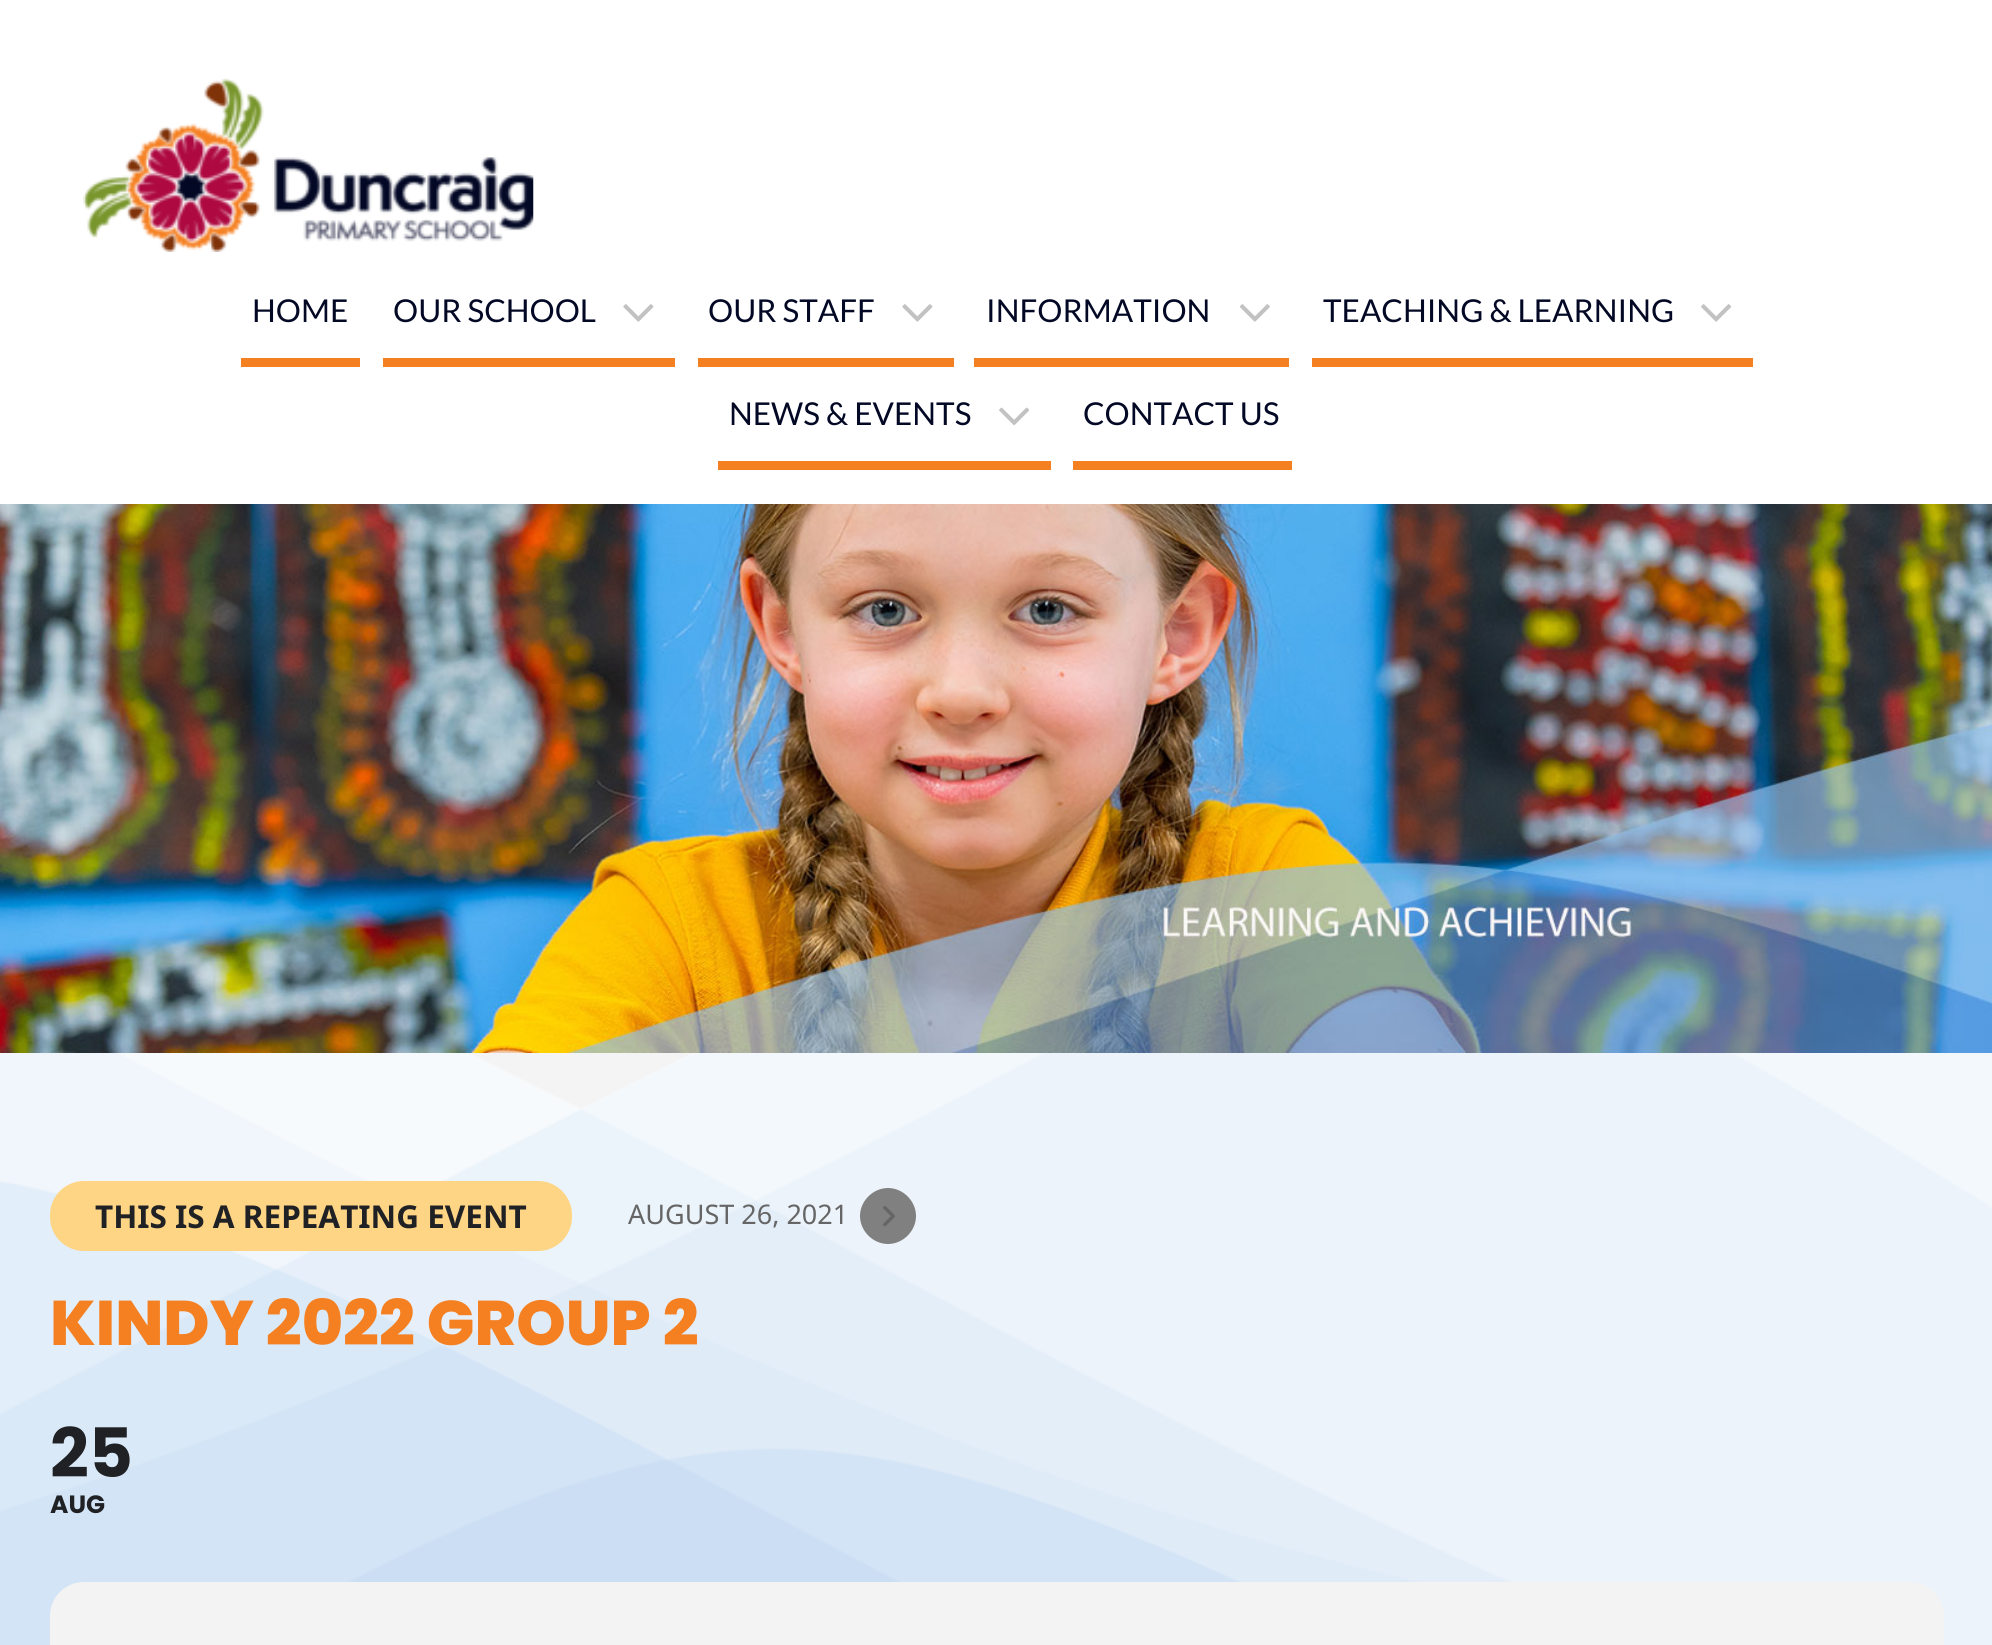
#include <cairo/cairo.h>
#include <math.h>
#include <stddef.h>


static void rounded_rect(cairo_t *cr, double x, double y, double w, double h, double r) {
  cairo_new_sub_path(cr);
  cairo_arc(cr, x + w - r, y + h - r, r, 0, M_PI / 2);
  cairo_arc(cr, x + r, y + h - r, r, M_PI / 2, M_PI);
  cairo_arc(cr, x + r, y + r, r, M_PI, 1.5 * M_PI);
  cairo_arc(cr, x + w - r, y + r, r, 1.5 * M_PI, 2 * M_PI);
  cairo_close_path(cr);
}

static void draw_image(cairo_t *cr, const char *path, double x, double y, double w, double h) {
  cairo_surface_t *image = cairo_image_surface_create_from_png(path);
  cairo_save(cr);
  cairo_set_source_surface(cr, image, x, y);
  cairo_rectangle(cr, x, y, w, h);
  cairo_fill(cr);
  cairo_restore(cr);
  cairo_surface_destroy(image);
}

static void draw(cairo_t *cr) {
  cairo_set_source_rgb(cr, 245 / 255.0, 244 / 255.0, 244 / 255.0);
  cairo_paint(cr);
  draw_image(cr, "images/1.png", 0, 1053, 1992, 592);
  cairo_set_source_rgb(cr, 1, 1, 1);
  cairo_rectangle(cr, 0, 0, 1992, 504);
  cairo_fill(cr);
  draw_image(cr, "images/2.png", 83, 78, 451, 174);
  cairo_set_source_rgb(cr, 245 / 255.0, 128 / 255.0, 34 / 255.0);
  cairo_rectangle(cr, 241, 358, 119, 9);
  cairo_fill(cr);
  draw_image(cr, "images/3.png", 623, 304, 31, 18);
  cairo_rectangle(cr, 383, 358, 292, 9);
  cairo_fill(cr);
  draw_image(cr, "images/3.png", 902, 304, 31, 18);
  cairo_rectangle(cr, 698, 358, 256, 9);
  cairo_fill(cr);
  draw_image(cr, "images/4.png", 1239, 304, 31, 18);
  cairo_rectangle(cr, 974, 358, 315, 9);
  cairo_fill(cr);
  draw_image(cr, "images/5.png", 1701, 304, 31, 18);
  cairo_rectangle(cr, 1312, 358, 441, 9);
  cairo_fill(cr);
  draw_image(cr, "images/6.png", 999, 407, 30, 19);
  cairo_rectangle(cr, 718, 461, 333, 9);
  cairo_fill(cr);
  cairo_rectangle(cr, 1073, 461, 219, 9);
  cairo_fill(cr);
  draw_image(cr, "images/7.png", 0, 504, 1992, 549);
  cairo_set_source_rgb(cr, 254 / 255.0, 213 / 255.0, 132 / 255.0);
  rounded_rect(cr, 50, 1181, 522, 70, 34);
  cairo_fill(cr);
  cairo_set_source_rgb(cr, 128 / 255.0, 128 / 255.0, 128 / 255.0);
  cairo_new_path(cr);
  cairo_move_to(cr, 888, 1188);
  cairo_curve_to(cr, 903, 1188, 916, 1201, 916, 1216);
  cairo_curve_to(cr, 916, 1231, 903, 1244, 888, 1244);
  cairo_curve_to(cr, 873, 1244, 860, 1231, 860, 1216);
  cairo_curve_to(cr, 860, 1201, 873, 1188, 888, 1188);
  cairo_close_path(cr);
  cairo_fill(cr);
  draw_image(cr, "images/8.png", 883, 1206, 12, 21);
  cairo_set_source_rgb(cr, 243 / 255.0, 243 / 255.0, 243 / 255.0);
  rounded_rect(cr, 50, 1582, 1894, 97, 34);
  cairo_fill(cr);
  cairo_select_font_face(cr, "Lato", CAIRO_FONT_SLANT_NORMAL, CAIRO_FONT_WEIGHT_NORMAL);
  cairo_set_font_size(cr, 31.5);
  cairo_set_source_rgb(cr, 3 / 255.0, 8 / 255.0, 37 / 255.0);
  cairo_move_to(cr, 252, 322);
  cairo_show_text(cr, "HOME");
  cairo_move_to(cr, 393, 322);
  cairo_show_text(cr, "OUR SCHOOL");
  cairo_move_to(cr, 708, 322);
  cairo_show_text(cr, "OUR STAFF");
  cairo_move_to(cr, 986, 322);
  cairo_show_text(cr, "INFORMATION");
  cairo_move_to(cr, 1323, 322);
  cairo_show_text(cr, "TEACHING & LEARNING");
  cairo_move_to(cr, 729, 425);
  cairo_show_text(cr, "NEWS & EVENTS");
  cairo_move_to(cr, 1083, 425);
  cairo_show_text(cr, "CONTACT US");
  cairo_select_font_face(cr, "Noto Sans", CAIRO_FONT_SLANT_NORMAL, CAIRO_FONT_WEIGHT_BOLD);
  cairo_set_source_rgb(cr, 32 / 255.0, 33 / 255.0, 36 / 255.0);
  cairo_move_to(cr, 95, 1228);
  cairo_show_text(cr, "THIS IS A REPEATING EVENT");
  cairo_select_font_face(cr, "Noto Sans", CAIRO_FONT_SLANT_NORMAL, CAIRO_FONT_WEIGHT_NORMAL);
  cairo_set_font_size(cr, 27);
  cairo_set_source_rgb(cr, 101 / 255.0, 101 / 255.0, 101 / 255.0);
  cairo_move_to(cr, 628, 1224);
  cairo_show_text(cr, "AUGUST 26, 2021");
  cairo_select_font_face(cr, "Poppins ExtraBold", CAIRO_FONT_SLANT_NORMAL, CAIRO_FONT_WEIGHT_NORMAL);
  cairo_set_font_size(cr, 63);
  cairo_set_source_rgb(cr, 245 / 255.0, 128 / 255.0, 34 / 255.0);
  cairo_move_to(cr, 50, 1345);
  cairo_show_text(cr, "KINDY 2022 GROUP 2");
  cairo_select_font_face(cr, "Poppins", CAIRO_FONT_SLANT_NORMAL, CAIRO_FONT_WEIGHT_BOLD);
  cairo_set_font_size(cr, 68);
  cairo_set_source_rgb(cr, 32 / 255.0, 33 / 255.0, 36 / 255.0);
  cairo_move_to(cr, 50, 1477);
  cairo_show_text(cr, "25");
  cairo_set_font_size(cr, 25);
  cairo_move_to(cr, 50, 1513);
  cairo_show_text(cr, "AUG");
}

int main(void) {
  cairo_surface_t *surface = cairo_image_surface_create(CAIRO_FORMAT_RGB24, 1992, 1645);
  cairo_t *cr = cairo_create(surface);
  cairo_font_options_t *options = cairo_font_options_create();
  cairo_font_options_set_hint_metrics(options, CAIRO_HINT_METRICS_OFF);
  cairo_font_options_set_hint_style(options, CAIRO_HINT_STYLE_NONE);
  cairo_set_font_options(cr, options);
  cairo_set_miter_limit(cr, 4);
  draw(cr);
  cairo_surface_write_to_png(surface, "out.png");
  cairo_font_options_destroy(options);
  cairo_destroy(cr);
  cairo_surface_destroy(surface);
  return 0;
}
